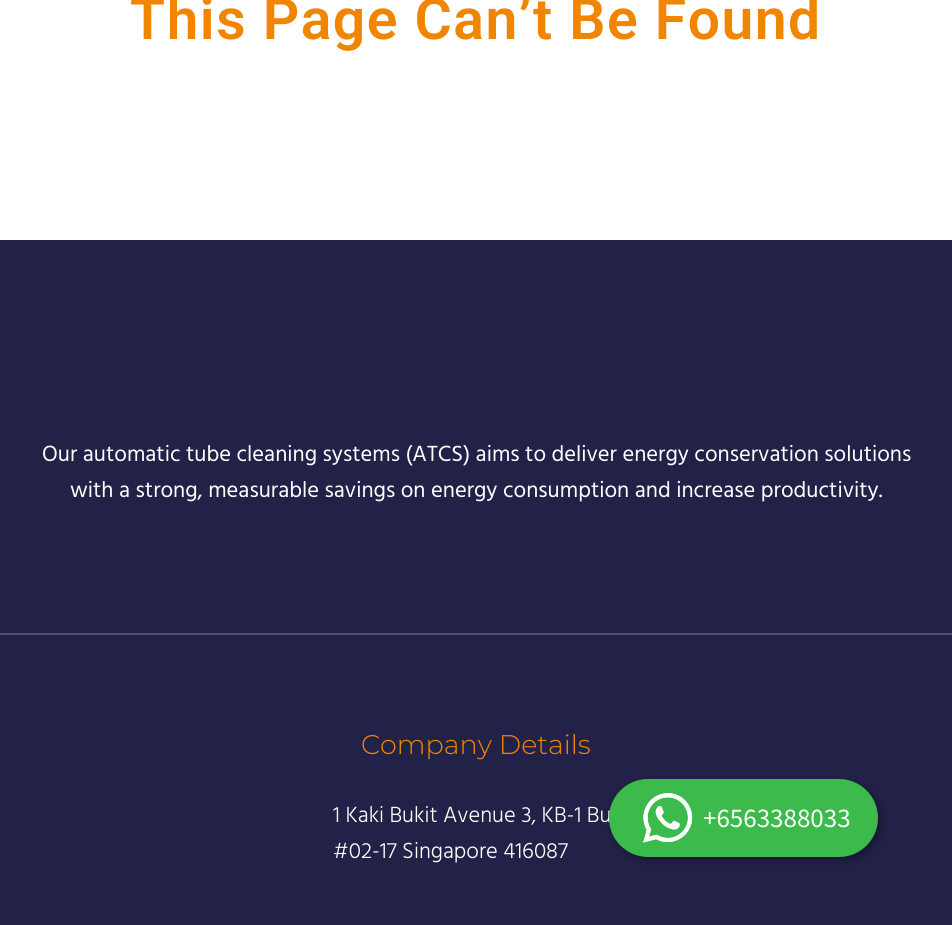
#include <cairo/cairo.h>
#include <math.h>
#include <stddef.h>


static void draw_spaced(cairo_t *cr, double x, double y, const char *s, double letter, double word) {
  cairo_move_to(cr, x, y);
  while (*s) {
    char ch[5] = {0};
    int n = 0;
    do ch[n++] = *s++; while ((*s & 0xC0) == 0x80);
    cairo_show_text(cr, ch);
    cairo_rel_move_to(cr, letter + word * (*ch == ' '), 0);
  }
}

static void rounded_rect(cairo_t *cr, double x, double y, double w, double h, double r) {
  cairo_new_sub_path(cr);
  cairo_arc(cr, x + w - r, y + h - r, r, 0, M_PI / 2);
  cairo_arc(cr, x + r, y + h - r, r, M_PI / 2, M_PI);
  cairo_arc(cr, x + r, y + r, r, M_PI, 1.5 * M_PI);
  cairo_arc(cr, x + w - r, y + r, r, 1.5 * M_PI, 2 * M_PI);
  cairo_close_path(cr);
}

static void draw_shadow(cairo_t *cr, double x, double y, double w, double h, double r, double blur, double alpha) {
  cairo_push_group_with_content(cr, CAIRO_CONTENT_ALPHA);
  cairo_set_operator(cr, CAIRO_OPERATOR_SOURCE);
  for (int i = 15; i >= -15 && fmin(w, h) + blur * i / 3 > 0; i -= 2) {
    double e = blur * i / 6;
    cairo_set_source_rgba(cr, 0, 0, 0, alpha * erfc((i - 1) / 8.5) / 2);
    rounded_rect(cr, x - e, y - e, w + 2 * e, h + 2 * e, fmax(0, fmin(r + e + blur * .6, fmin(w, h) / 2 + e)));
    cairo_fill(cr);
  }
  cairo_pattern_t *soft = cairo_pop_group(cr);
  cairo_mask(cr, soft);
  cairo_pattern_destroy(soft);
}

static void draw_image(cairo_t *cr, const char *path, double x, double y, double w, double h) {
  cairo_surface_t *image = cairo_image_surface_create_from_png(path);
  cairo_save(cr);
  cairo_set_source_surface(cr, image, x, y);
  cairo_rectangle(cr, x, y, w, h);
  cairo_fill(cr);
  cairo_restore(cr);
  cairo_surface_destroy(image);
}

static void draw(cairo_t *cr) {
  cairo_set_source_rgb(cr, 1, 1, 1);
  cairo_paint(cr);
  cairo_set_source_rgb(cr, 34 / 255.0, 34 / 255.0, 73 / 255.0);
  cairo_rectangle(cr, 0, 240, 952, 685);
  cairo_fill(cr);
  cairo_set_source_rgb(cr, 78 / 255.0, 78 / 255.0, 109 / 255.0);
  cairo_rectangle(cr, 0, 633, 952, 2);
  cairo_fill(cr);
  cairo_set_source_rgb(cr, 0, 0, 0);
  draw_shadow(cr, 612, 782, 269, 78, 39, 4.5, 0.4);
  cairo_select_font_face(cr, "Roboto SemiBold", CAIRO_FONT_SLANT_NORMAL, CAIRO_FONT_WEIGHT_NORMAL);
  cairo_set_font_size(cr, 57);
  cairo_set_source_rgb(cr, 241 / 255.0, 133 / 255.0, 0);
  draw_spaced(cr, 130, 39, "This Page Can’t Be Found", 1.5, 0);
  cairo_select_font_face(cr, "Hind", CAIRO_FONT_SLANT_NORMAL, CAIRO_FONT_WEIGHT_NORMAL);
  cairo_set_font_size(cr, 22.5);
  cairo_set_source_rgb(cr, 1, 1, 1);
  cairo_move_to(cr, 42, 461);
  cairo_show_text(cr, "Our automatic tube cleaning systems (ATCS) aims to deliver energy conservation solutions");
  cairo_move_to(cr, 70, 497);
  cairo_show_text(cr, "with a strong, measurable savings on energy consumption and increase productivity.");
  cairo_select_font_face(cr, "Montserrat Light", CAIRO_FONT_SLANT_NORMAL, CAIRO_FONT_WEIGHT_NORMAL);
  cairo_set_font_size(cr, 27);
  cairo_set_source_rgb(cr, 241 / 255.0, 133 / 255.0, 0);
  cairo_move_to(cr, 361, 754);
  cairo_show_text(cr, "Company Details");
  cairo_select_font_face(cr, "Hind Light", CAIRO_FONT_SLANT_NORMAL, CAIRO_FONT_WEIGHT_NORMAL);
  cairo_set_font_size(cr, 22.5);
  cairo_set_source_rgb(cr, 1, 1, 1);
  cairo_move_to(cr, 333, 822);
  cairo_show_text(cr, "1 Kaki Bukit Avenue 3, KB-1 Bu");
  cairo_move_to(cr, 333, 858);
  cairo_show_text(cr, "#02-17 Singapore 416087");
  cairo_set_source_rgb(cr, 60 / 255.0, 186 / 255.0, 76 / 255.0);
  rounded_rect(cr, 609, 779, 269, 78, 39);
  cairo_fill(cr);
  draw_image(cr, "images/1.png", 643, 793, 50, 50);
  cairo_select_font_face(cr, "Source Sans Pro", CAIRO_FONT_SLANT_NORMAL, CAIRO_FONT_WEIGHT_NORMAL);
  cairo_set_font_size(cr, 27);
  cairo_set_source_rgb(cr, 1, 1, 1);
  cairo_move_to(cr, 703, 827);
  cairo_show_text(cr, "+6563388033");
}

int main(void) {
  cairo_surface_t *surface = cairo_image_surface_create(CAIRO_FORMAT_RGB24, 952, 925);
  cairo_t *cr = cairo_create(surface);
  cairo_font_options_t *options = cairo_font_options_create();
  cairo_font_options_set_hint_metrics(options, CAIRO_HINT_METRICS_OFF);
  cairo_font_options_set_hint_style(options, CAIRO_HINT_STYLE_NONE);
  cairo_set_font_options(cr, options);
  cairo_set_miter_limit(cr, 4);
  draw(cr);
  cairo_surface_write_to_png(surface, "out.png");
  cairo_font_options_destroy(options);
  cairo_destroy(cr);
  cairo_surface_destroy(surface);
  return 0;
}
